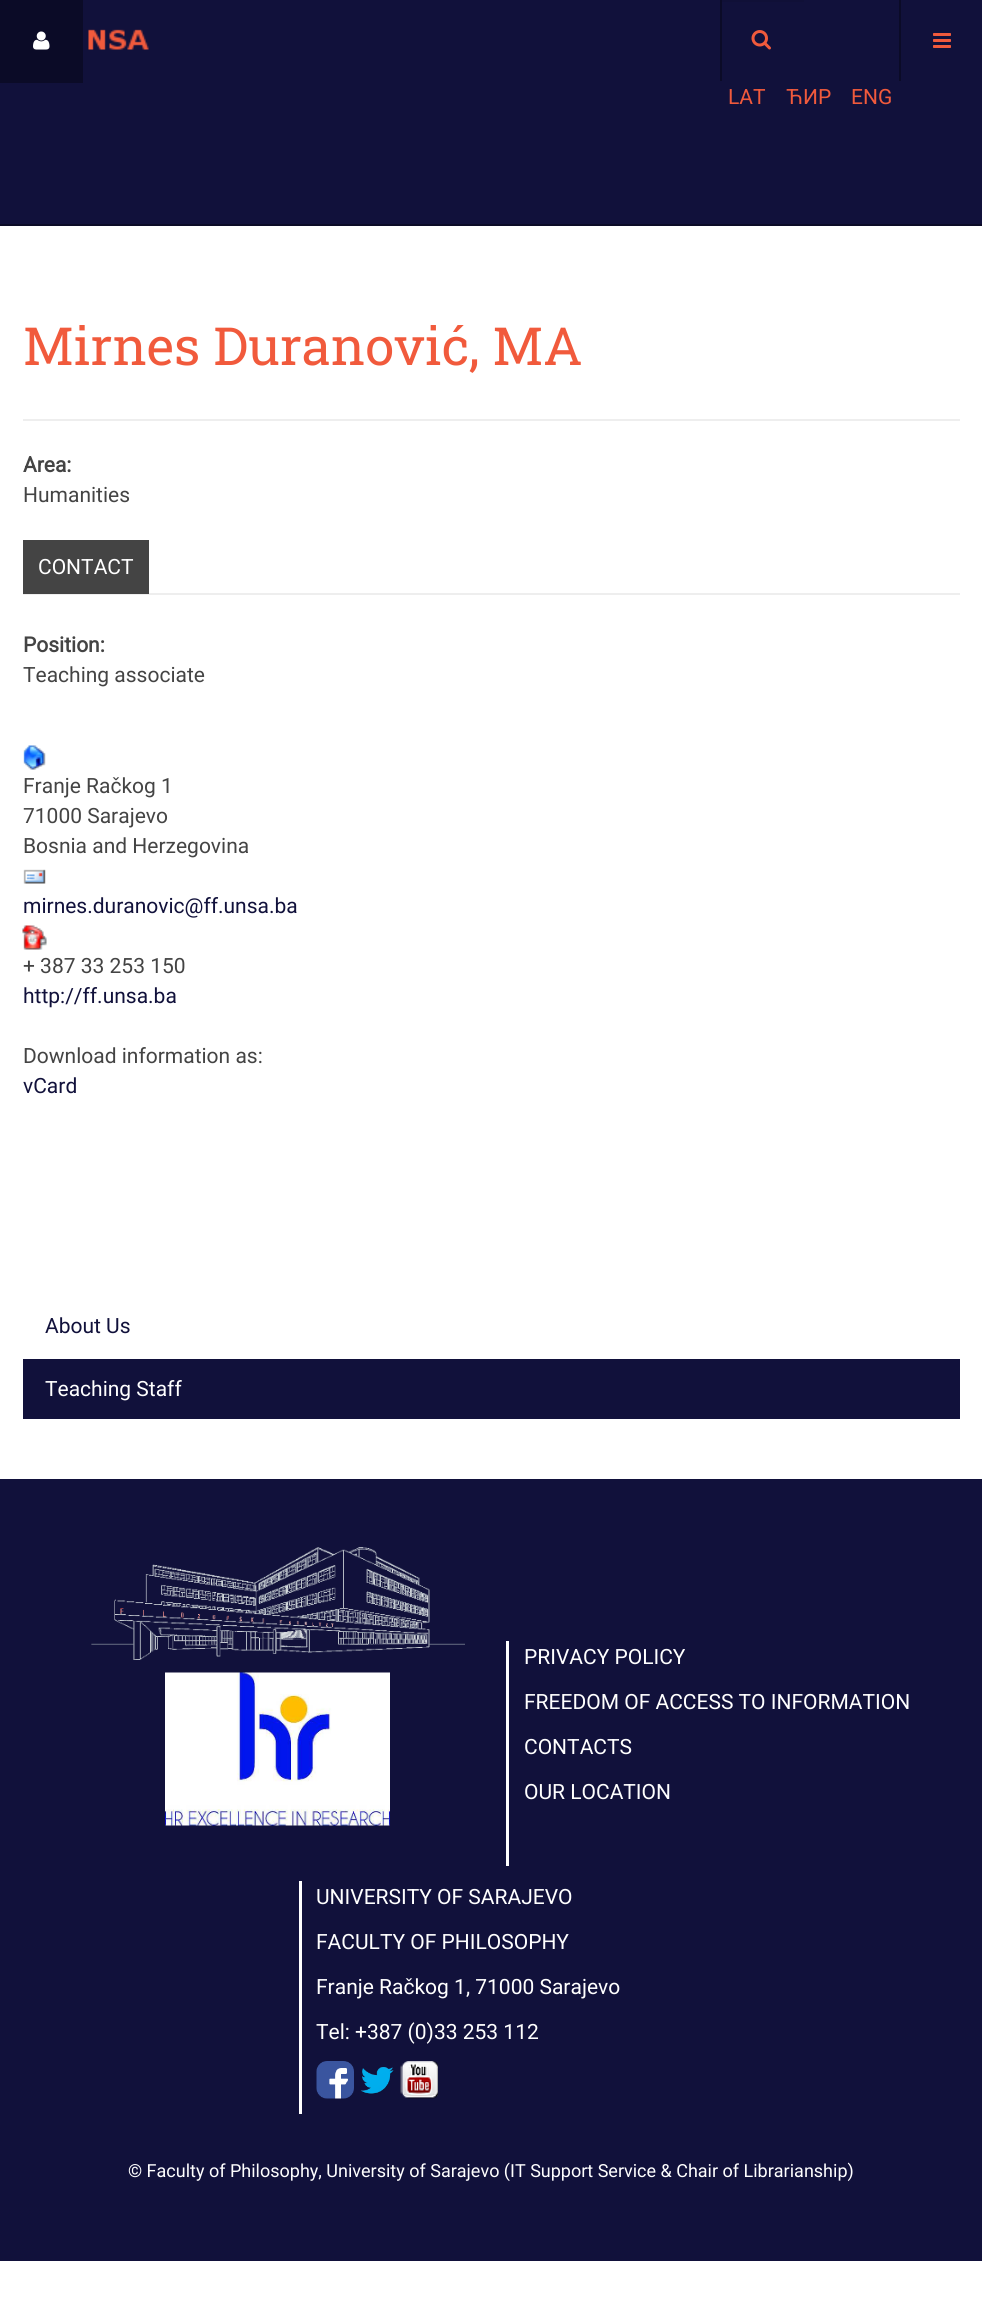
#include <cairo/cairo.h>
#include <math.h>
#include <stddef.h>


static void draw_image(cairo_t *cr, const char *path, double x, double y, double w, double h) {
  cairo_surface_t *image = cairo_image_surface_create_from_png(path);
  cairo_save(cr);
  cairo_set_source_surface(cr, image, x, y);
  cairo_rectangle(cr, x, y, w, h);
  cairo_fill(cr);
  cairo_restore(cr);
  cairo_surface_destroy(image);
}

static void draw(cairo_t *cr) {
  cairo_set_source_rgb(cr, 1, 1, 1);
  cairo_paint(cr);
  cairo_set_source_rgb(cr, 17 / 255.0, 17 / 255.0, 59 / 255.0);
  cairo_rectangle(cr, 0, 0, 982, 224);
  cairo_fill(cr);
  cairo_set_source_rgb(cr, 11 / 255.0, 11 / 255.0, 39 / 255.0);
  cairo_rectangle(cr, 0, 224, 982, 2);
  cairo_fill(cr);
  cairo_rectangle(cr, 0, 0, 83, 83);
  cairo_fill(cr);
  draw_image(cr, "images/1.png", 33, 31, 17, 19);
  draw_image(cr, "images/2.png", 88, 29, 61, 21);
  draw_image(cr, "images/3.png", 933, 33, 18, 15);
  cairo_rectangle(cr, 899, 0, 2, 81);
  cairo_fill(cr);
  cairo_rectangle(cr, 720, 0, 2, 81);
  cairo_fill(cr);
  cairo_set_source_rgb(cr, 16 / 255.0, 16 / 255.0, 55 / 255.0);
  cairo_rectangle(cr, 722, 0, 82, 2);
  cairo_fill(cr);
  draw_image(cr, "images/4.png", 751, 30, 20, 20);
  cairo_set_source_rgb(cr, 238 / 255.0, 238 / 255.0, 238 / 255.0);
  cairo_rectangle(cr, 23, 419, 937, 2);
  cairo_fill(cr);
  cairo_rectangle(cr, 23, 593, 937, 2);
  cairo_fill(cr);
  cairo_set_source_rgb(cr, 68 / 255.0, 68 / 255.0, 68 / 255.0);
  cairo_rectangle(cr, 23, 540, 126, 54);
  cairo_fill(cr);
  draw_image(cr, "images/5.png", 23, 745, 23, 25);
  draw_image(cr, "images/6.png", 23, 869, 23, 15);
  draw_image(cr, "images/7.png", 22, 925, 25, 25);
  cairo_set_source_rgb(cr, 17 / 255.0, 17 / 255.0, 59 / 255.0);
  cairo_rectangle(cr, 23, 1359, 937, 60);
  cairo_fill(cr);
  cairo_rectangle(cr, 0, 1479, 982, 782);
  cairo_fill(cr);
  draw_image(cr, "images/8.png", 91, 1547, 374, 113);
  draw_image(cr, "images/9.png", 165, 1672, 225, 154);
  cairo_set_source_rgb(cr, 1, 1, 1);
  cairo_rectangle(cr, 506, 1641, 3, 225);
  cairo_fill(cr);
  cairo_rectangle(cr, 299, 1881, 3, 233);
  cairo_fill(cr);
  draw_image(cr, "images/10.png", 316, 2061, 38, 38);
  draw_image(cr, "images/11.png", 361, 2067, 33, 28);
  draw_image(cr, "images/12.png", 400, 2061, 38, 38);
  cairo_select_font_face(cr, "Roboto", CAIRO_FONT_SLANT_NORMAL, CAIRO_FONT_WEIGHT_NORMAL);
  cairo_set_font_size(cr, 21);
  cairo_set_source_rgb(cr, 241 / 255.0, 90 / 255.0, 60 / 255.0);
  cairo_move_to(cr, 728, 104);
  cairo_show_text(cr, "LAT");
  cairo_move_to(cr, 786, 104);
  cairo_show_text(cr, "ЋИР");
  cairo_move_to(cr, 851, 104);
  cairo_show_text(cr, "ENG");
  cairo_select_font_face(cr, "Roboto Slab", CAIRO_FONT_SLANT_NORMAL, CAIRO_FONT_WEIGHT_NORMAL);
  cairo_set_font_size(cr, 52.5);
  cairo_move_to(cr, 23, 365);
  cairo_show_text(cr, "Mirnes Duranović, MA");
  cairo_select_font_face(cr, "Roboto", CAIRO_FONT_SLANT_NORMAL, CAIRO_FONT_WEIGHT_BOLD);
  cairo_set_font_size(cr, 21);
  cairo_set_source_rgb(cr, 68 / 255.0, 68 / 255.0, 68 / 255.0);
  cairo_move_to(cr, 23, 472);
  cairo_show_text(cr, "Area:");
  cairo_select_font_face(cr, "Roboto", CAIRO_FONT_SLANT_NORMAL, CAIRO_FONT_WEIGHT_NORMAL);
  cairo_move_to(cr, 23, 502);
  cairo_show_text(cr, "Humanities");
  cairo_set_source_rgb(cr, 1, 1, 1);
  cairo_move_to(cr, 38, 574);
  cairo_show_text(cr, "CONTACT");
  cairo_select_font_face(cr, "Roboto", CAIRO_FONT_SLANT_NORMAL, CAIRO_FONT_WEIGHT_BOLD);
  cairo_set_source_rgb(cr, 68 / 255.0, 68 / 255.0, 68 / 255.0);
  cairo_move_to(cr, 23, 652);
  cairo_show_text(cr, "Position:");
  cairo_select_font_face(cr, "Roboto", CAIRO_FONT_SLANT_NORMAL, CAIRO_FONT_WEIGHT_NORMAL);
  cairo_move_to(cr, 23, 682);
  cairo_show_text(cr, "Teaching associate");
  cairo_move_to(cr, 23, 793);
  cairo_show_text(cr, "Franje Račkog 1");
  cairo_move_to(cr, 23, 823);
  cairo_show_text(cr, "71000 Sarajevo");
  cairo_move_to(cr, 23, 853);
  cairo_show_text(cr, "Bosnia and Herzegovina");
  cairo_set_source_rgb(cr, 17 / 255.0, 17 / 255.0, 59 / 255.0);
  cairo_move_to(cr, 23, 913);
  cairo_show_text(cr, "mirnes.duranovic@ff.unsa.ba");
  cairo_set_source_rgb(cr, 68 / 255.0, 68 / 255.0, 68 / 255.0);
  cairo_move_to(cr, 23, 973);
  cairo_show_text(cr, "+ 387 33 253 150");
  cairo_set_source_rgb(cr, 17 / 255.0, 17 / 255.0, 59 / 255.0);
  cairo_move_to(cr, 23, 1003);
  cairo_show_text(cr, "http://ff.unsa.ba");
  cairo_set_source_rgb(cr, 68 / 255.0, 68 / 255.0, 68 / 255.0);
  cairo_move_to(cr, 23, 1063);
  cairo_show_text(cr, "Download information as:");
  cairo_set_source_rgb(cr, 17 / 255.0, 17 / 255.0, 59 / 255.0);
  cairo_move_to(cr, 23, 1093);
  cairo_show_text(cr, "vCard");
  cairo_move_to(cr, 45, 1333);
  cairo_show_text(cr, "About Us");
  cairo_set_source_rgb(cr, 1, 1, 1);
  cairo_move_to(cr, 45, 1396);
  cairo_show_text(cr, "Teaching Staff");
  cairo_move_to(cr, 524, 1664);
  cairo_show_text(cr, "PRIVACY POLICY");
  cairo_move_to(cr, 524, 1709);
  cairo_show_text(cr, "FREEDOM OF ACCESS TO INFORMATION");
  cairo_move_to(cr, 524, 1754);
  cairo_show_text(cr, "CONTACTS");
  cairo_move_to(cr, 524, 1799);
  cairo_show_text(cr, "OUR LOCATION");
  cairo_move_to(cr, 316, 1904);
  cairo_show_text(cr, "UNIVERSITY OF SARAJEVO");
  cairo_move_to(cr, 316, 1949);
  cairo_show_text(cr, "FACULTY OF PHILOSOPHY");
  cairo_move_to(cr, 316, 1994);
  cairo_show_text(cr, "Franje Račkog 1, 71000 Sarajevo");
  cairo_move_to(cr, 316, 2039);
  cairo_show_text(cr, "Tel: +387 (0)33 253 112");
  cairo_set_font_size(cr, 18);
  cairo_move_to(cr, 128, 2177);
  cairo_show_text(cr, "© Faculty of Philosophy, University of Sarajevo (IT Support Service & Chair of Librarianship)");
}

int main(void) {
  cairo_surface_t *surface = cairo_image_surface_create(CAIRO_FORMAT_RGB24, 982, 2311);
  cairo_t *cr = cairo_create(surface);
  cairo_font_options_t *options = cairo_font_options_create();
  cairo_font_options_set_hint_metrics(options, CAIRO_HINT_METRICS_OFF);
  cairo_font_options_set_hint_style(options, CAIRO_HINT_STYLE_NONE);
  cairo_set_font_options(cr, options);
  cairo_set_miter_limit(cr, 4);
  draw(cr);
  cairo_surface_write_to_png(surface, "out.png");
  cairo_font_options_destroy(options);
  cairo_destroy(cr);
  cairo_surface_destroy(surface);
  return 0;
}
